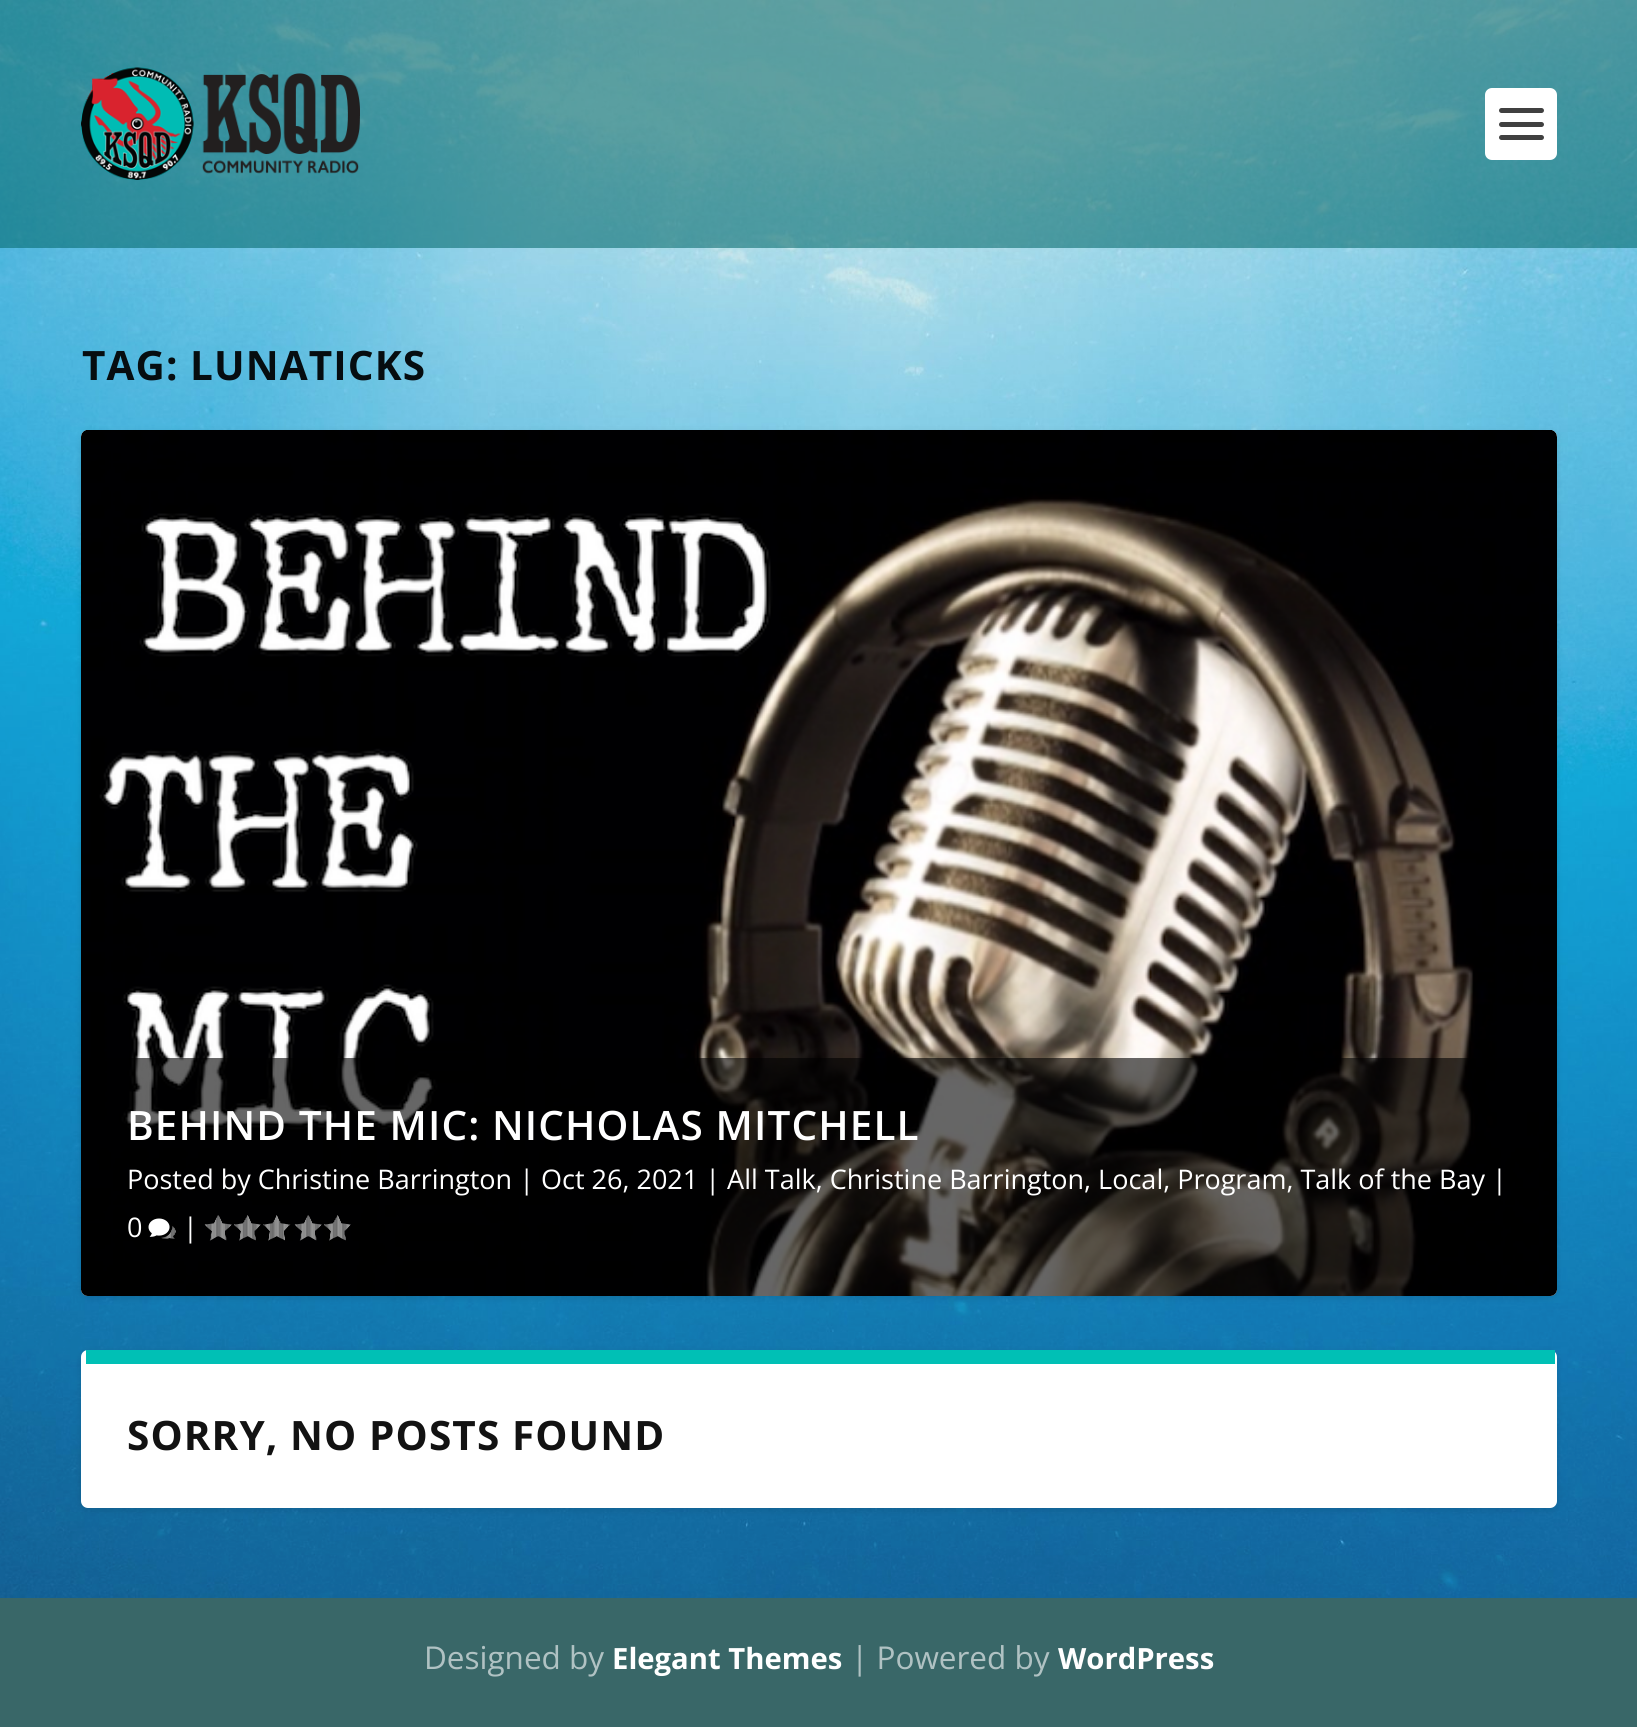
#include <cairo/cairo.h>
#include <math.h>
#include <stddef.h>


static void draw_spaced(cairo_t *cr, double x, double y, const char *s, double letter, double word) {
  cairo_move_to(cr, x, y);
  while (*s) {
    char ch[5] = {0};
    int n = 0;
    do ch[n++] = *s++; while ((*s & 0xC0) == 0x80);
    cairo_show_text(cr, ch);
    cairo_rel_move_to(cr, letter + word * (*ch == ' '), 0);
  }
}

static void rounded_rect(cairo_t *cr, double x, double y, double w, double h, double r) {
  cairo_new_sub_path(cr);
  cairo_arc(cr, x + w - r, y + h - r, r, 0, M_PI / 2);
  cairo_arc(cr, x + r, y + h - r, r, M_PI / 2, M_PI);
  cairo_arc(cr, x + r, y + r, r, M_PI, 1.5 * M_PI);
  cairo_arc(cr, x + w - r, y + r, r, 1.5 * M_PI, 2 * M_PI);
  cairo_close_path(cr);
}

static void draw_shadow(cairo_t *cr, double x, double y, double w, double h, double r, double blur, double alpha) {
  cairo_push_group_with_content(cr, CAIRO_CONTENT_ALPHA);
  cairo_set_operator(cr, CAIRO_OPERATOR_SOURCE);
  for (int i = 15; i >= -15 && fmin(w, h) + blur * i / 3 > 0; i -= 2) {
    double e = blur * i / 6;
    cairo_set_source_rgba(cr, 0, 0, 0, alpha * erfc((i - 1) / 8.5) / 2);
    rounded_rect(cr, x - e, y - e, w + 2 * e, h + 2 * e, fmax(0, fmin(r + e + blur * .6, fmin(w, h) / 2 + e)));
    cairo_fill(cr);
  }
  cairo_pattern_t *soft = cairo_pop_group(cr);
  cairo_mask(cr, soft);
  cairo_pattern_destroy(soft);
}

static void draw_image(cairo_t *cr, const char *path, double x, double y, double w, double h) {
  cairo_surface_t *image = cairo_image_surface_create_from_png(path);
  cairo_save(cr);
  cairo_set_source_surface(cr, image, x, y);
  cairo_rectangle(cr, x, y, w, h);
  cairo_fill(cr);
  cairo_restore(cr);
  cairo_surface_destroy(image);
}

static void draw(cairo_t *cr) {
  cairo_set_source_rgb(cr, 1, 1, 1);
  cairo_paint(cr);
  draw_image(cr, "images/1.png", 0, 0, 1637, 1598);
  cairo_set_source_rgba(cr, 0, 102 / 255.0, 104 / 255.0, 0.56);
  cairo_rectangle(cr, 0, 0, 1637, 248);
  cairo_fill(cr);
  draw_image(cr, "images/2.png", 81, 67, 279, 113);
  cairo_set_source_rgb(cr, 1, 1, 1);
  rounded_rect(cr, 1485, 88, 72, 72, 7);
  cairo_fill(cr);
  cairo_set_source_rgb(cr, 64 / 255.0, 64 / 255.0, 64 / 255.0);
  rounded_rect(cr, 1499, 108, 45, 5, 2.5);
  cairo_fill(cr);
  rounded_rect(cr, 1499, 122, 45, 5, 2.5);
  cairo_fill(cr);
  rounded_rect(cr, 1499, 135, 45, 5, 2.5);
  cairo_fill(cr);
  cairo_set_source_rgb(cr, 0, 0, 0);
  draw_shadow(cr, 81, 432, 1476, 866, 7, 3.5, 0.1);
  cairo_set_source_rgb(cr, 1, 1, 1);
  rounded_rect(cr, 81, 430, 1476, 866, 7);
  cairo_fill(cr);
  draw_image(cr, "images/3.png", 81, 430, 1476, 866);
  cairo_set_source_rgba(cr, 0, 0, 0, 0.6);
  cairo_new_path(cr);
  cairo_move_to(cr, 81, 1058);
  cairo_line_to(cr, 1557, 1058);
  cairo_line_to(cr, 1557, 1289);
  cairo_curve_to(cr, 1557, 1293, 1554, 1296, 1550, 1296);
  cairo_line_to(cr, 88, 1296);
  cairo_curve_to(cr, 84, 1296, 81, 1293, 81, 1289);
  cairo_close_path(cr);
  cairo_fill(cr);
  draw_image(cr, "images/4.png", 148, 1218, 28, 21);
  draw_image(cr, "images/5.png", 204, 1215, 28, 26);
  draw_image(cr, "images/6.png", 234, 1215, 27, 26);
  draw_image(cr, "images/7.png", 263, 1215, 28, 26);
  draw_image(cr, "images/8.png", 294, 1215, 28, 26);
  draw_image(cr, "images/9.png", 324, 1215, 27, 26);
  cairo_set_source_rgb(cr, 0, 0, 0);
  draw_shadow(cr, 81, 1352, 1476, 158, 7, 3.5, 0.1);
  cairo_set_source_rgb(cr, 1, 1, 1);
  rounded_rect(cr, 81, 1350, 1476, 158, 7);
  cairo_fill(cr);
  cairo_set_source_rgb(cr, 0, 192 / 255.0, 181 / 255.0);
  cairo_rectangle(cr, 86, 1350, 1469, 14);
  cairo_fill(cr);
  cairo_set_source_rgb(cr, 57 / 255.0, 103 / 255.0, 104 / 255.0);
  cairo_rectangle(cr, 0, 1598, 1637, 129);
  cairo_fill(cr);
  cairo_select_font_face(cr, "Open Sans", CAIRO_FONT_SLANT_NORMAL, CAIRO_FONT_WEIGHT_BOLD);
  cairo_set_font_size(cr, 40.5);
  cairo_set_source_rgb(cr, 6 / 255.0, 13 / 255.0, 16 / 255.0);
  draw_spaced(cr, 82, 380, "TAG:", 1.1, 0);
  draw_spaced(cr, 190, 380, "LUNATICKS", 1.1, 0);
  cairo_select_font_face(cr, "Open Sans SemiBold", CAIRO_FONT_SLANT_NORMAL, CAIRO_FONT_WEIGHT_NORMAL);
  cairo_set_source_rgb(cr, 1, 1, 1);
  draw_spaced(cr, 127, 1140, "BEHIND THE MIC: NICHOLAS MITCHELL", 1.1, 0);
  cairo_select_font_face(cr, "Open Sans", CAIRO_FONT_SLANT_NORMAL, CAIRO_FONT_WEIGHT_NORMAL);
  cairo_set_font_size(cr, 27);
  cairo_move_to(cr, 127, 1189);
  cairo_show_text(cr, "Posted by Christine Barrington | Oct 26, 2021 | All Talk, Christine Barrington, Local, Program, Talk of the Bay |");
  cairo_move_to(cr, 127, 1237);
  cairo_show_text(cr, "0");
  cairo_move_to(cr, 183, 1237);
  cairo_show_text(cr, "|");
  cairo_select_font_face(cr, "Open Sans", CAIRO_FONT_SLANT_NORMAL, CAIRO_FONT_WEIGHT_BOLD);
  cairo_set_font_size(cr, 40.5);
  cairo_set_source_rgb(cr, 18 / 255.0, 18 / 255.0, 18 / 255.0);
  draw_spaced(cr, 127, 1450, "SORRY, NO POSTS FOUND", 1.1, 0);
  cairo_select_font_face(cr, "Open Sans", CAIRO_FONT_SLANT_NORMAL, CAIRO_FONT_WEIGHT_NORMAL);
  cairo_set_font_size(cr, 31.5);
  cairo_set_source_rgb(cr, 176 / 255.0, 194 / 255.0, 195 / 255.0);
  cairo_move_to(cr, 424, 1669);
  cairo_show_text(cr, "Designed by");
  cairo_select_font_face(cr, "Open Sans", CAIRO_FONT_SLANT_NORMAL, CAIRO_FONT_WEIGHT_BOLD);
  cairo_set_font_size(cr, 29.25);
  cairo_set_source_rgb(cr, 1, 1, 1);
  cairo_move_to(cr, 612, 1669);
  cairo_show_text(cr, "Elegant Themes");
  cairo_select_font_face(cr, "Open Sans", CAIRO_FONT_SLANT_NORMAL, CAIRO_FONT_WEIGHT_NORMAL);
  cairo_set_font_size(cr, 31.5);
  cairo_set_source_rgb(cr, 176 / 255.0, 194 / 255.0, 195 / 255.0);
  cairo_move_to(cr, 851, 1669);
  cairo_show_text(cr, "| Powered by");
  cairo_select_font_face(cr, "Open Sans", CAIRO_FONT_SLANT_NORMAL, CAIRO_FONT_WEIGHT_BOLD);
  cairo_set_font_size(cr, 29.25);
  cairo_set_source_rgb(cr, 1, 1, 1);
  cairo_move_to(cr, 1058, 1669);
  cairo_show_text(cr, "WordPress");
}

int main(void) {
  cairo_surface_t *surface = cairo_image_surface_create(CAIRO_FORMAT_RGB24, 1637, 1727);
  cairo_t *cr = cairo_create(surface);
  cairo_font_options_t *options = cairo_font_options_create();
  cairo_font_options_set_hint_metrics(options, CAIRO_HINT_METRICS_OFF);
  cairo_font_options_set_hint_style(options, CAIRO_HINT_STYLE_NONE);
  cairo_set_font_options(cr, options);
  cairo_set_miter_limit(cr, 4);
  draw(cr);
  cairo_surface_write_to_png(surface, "out.png");
  cairo_font_options_destroy(options);
  cairo_destroy(cr);
  cairo_surface_destroy(surface);
  return 0;
}
